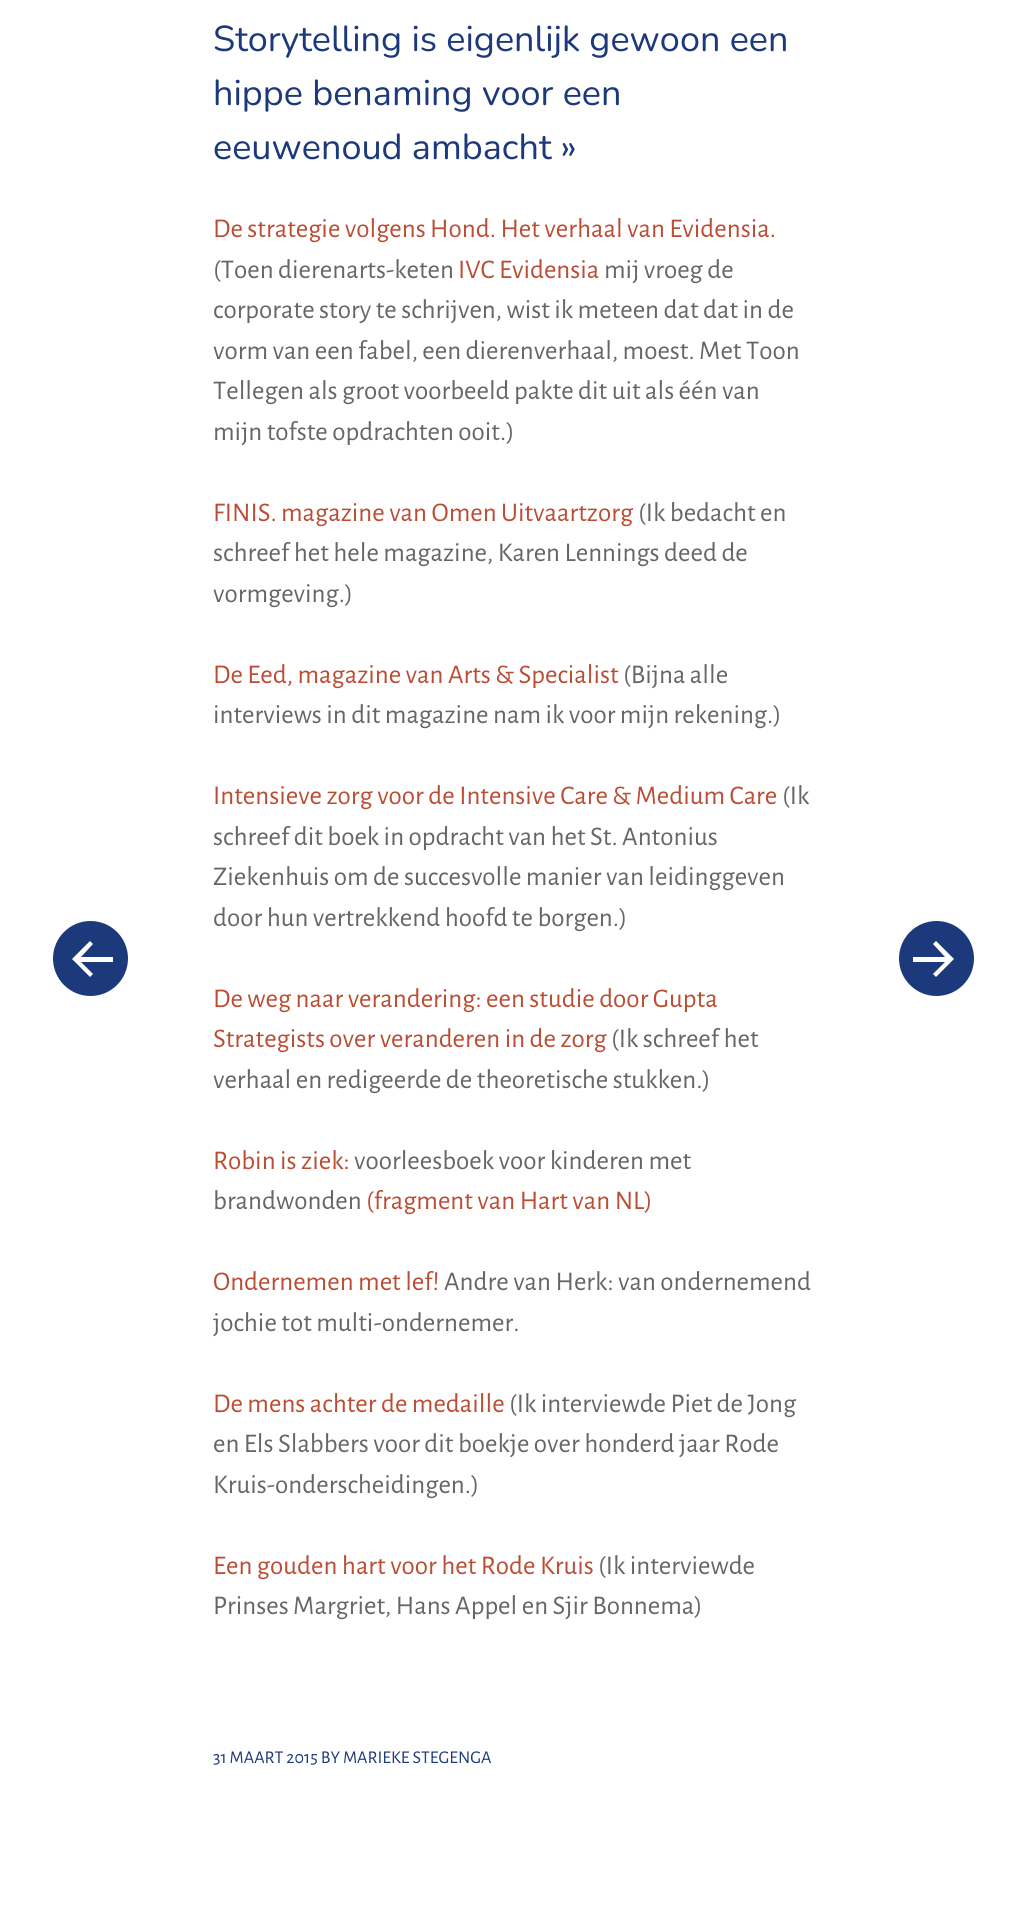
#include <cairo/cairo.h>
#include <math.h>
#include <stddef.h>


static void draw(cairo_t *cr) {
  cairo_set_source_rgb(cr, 1, 1, 1);
  cairo_paint(cr);
  cairo_set_source_rgb(cr, 28 / 255.0, 57 / 255.0, 124 / 255.0);
  cairo_arc(cr, 90.5, 958.5, 37.5, 0, 2 * M_PI);
  cairo_fill(cr);
  cairo_set_source_rgb(cr, 1, 1, 1);
  cairo_new_path(cr);
  cairo_move_to(cr, 72, 959);
  cairo_line_to(cr, 90, 977);
  cairo_line_to(cr, 93, 974);
  cairo_line_to(cr, 81, 962);
  cairo_line_to(cr, 113, 962);
  cairo_line_to(cr, 113, 957);
  cairo_line_to(cr, 81, 957);
  cairo_line_to(cr, 93, 944);
  cairo_line_to(cr, 90, 941);
  cairo_close_path(cr);
  cairo_fill(cr);
  cairo_set_source_rgb(cr, 28 / 255.0, 57 / 255.0, 124 / 255.0);
  cairo_arc(cr, 936.5, 958.5, 37.5, 0, 2 * M_PI);
  cairo_fill(cr);
  cairo_set_source_rgb(cr, 1, 1, 1);
  cairo_new_path(cr);
  cairo_move_to(cr, 954, 959);
  cairo_line_to(cr, 936, 977);
  cairo_line_to(cr, 933, 974);
  cairo_line_to(cr, 945, 962);
  cairo_line_to(cr, 913, 962);
  cairo_line_to(cr, 913, 957);
  cairo_line_to(cr, 945, 957);
  cairo_line_to(cr, 933, 944);
  cairo_line_to(cr, 936, 941);
  cairo_close_path(cr);
  cairo_fill(cr);
  cairo_select_font_face(cr, "Nunito ExtraLight", CAIRO_FONT_SLANT_NORMAL, CAIRO_FONT_WEIGHT_NORMAL);
  cairo_set_font_size(cr, 36);
  cairo_set_source_rgb(cr, 28 / 255.0, 57 / 255.0, 124 / 255.0);
  cairo_move_to(cr, 213, 51);
  cairo_show_text(cr, "Storytelling is eigenlijk gewoon een");
  cairo_move_to(cr, 213, 105);
  cairo_show_text(cr, "hippe benaming voor een");
  cairo_move_to(cr, 213, 159);
  cairo_show_text(cr, "eeuwenoud ambacht »");
  cairo_select_font_face(cr, "Alegreya Sans", CAIRO_FONT_SLANT_NORMAL, CAIRO_FONT_WEIGHT_NORMAL);
  cairo_set_font_size(cr, 27);
  cairo_set_source_rgb(cr, 186 / 255.0, 77 / 255.0, 52 / 255.0);
  cairo_move_to(cr, 213, 237);
  cairo_show_text(cr, "De strategie volgens Hond. Het verhaal van Evidensia.");
  cairo_set_source_rgb(cr, 102 / 255.0, 102 / 255.0, 102 / 255.0);
  cairo_move_to(cr, 213, 278);
  cairo_show_text(cr, "(Toen dierenarts-keten");
  cairo_set_source_rgb(cr, 186 / 255.0, 77 / 255.0, 52 / 255.0);
  cairo_move_to(cr, 458, 278);
  cairo_show_text(cr, "IVC Evidensia");
  cairo_set_source_rgb(cr, 102 / 255.0, 102 / 255.0, 102 / 255.0);
  cairo_move_to(cr, 604, 278);
  cairo_show_text(cr, "mij vroeg de");
  cairo_move_to(cr, 213, 318);
  cairo_show_text(cr, "corporate story te schrijven, wist ik meteen dat dat in de");
  cairo_move_to(cr, 213, 359);
  cairo_show_text(cr, "vorm van een fabel, een dierenverhaal, moest. Met Toon");
  cairo_move_to(cr, 213, 399);
  cairo_show_text(cr, "Tellegen als groot voorbeeld pakte dit uit als één van");
  cairo_move_to(cr, 213, 440);
  cairo_show_text(cr, "mijn tofste opdrachten ooit.)");
  cairo_set_source_rgb(cr, 186 / 255.0, 77 / 255.0, 52 / 255.0);
  cairo_move_to(cr, 213, 521);
  cairo_show_text(cr, "FINIS. magazine van Omen Uitvaartzorg");
  cairo_set_source_rgb(cr, 102 / 255.0, 102 / 255.0, 102 / 255.0);
  cairo_move_to(cr, 638, 521);
  cairo_show_text(cr, "(Ik bedacht en");
  cairo_move_to(cr, 213, 561);
  cairo_show_text(cr, "schreef het hele magazine, Karen Lennings deed de");
  cairo_move_to(cr, 213, 602);
  cairo_show_text(cr, "vormgeving.)");
  cairo_set_source_rgb(cr, 186 / 255.0, 77 / 255.0, 52 / 255.0);
  cairo_move_to(cr, 213, 683);
  cairo_show_text(cr, "De Eed, magazine van Arts & Specialist");
  cairo_set_source_rgb(cr, 102 / 255.0, 102 / 255.0, 102 / 255.0);
  cairo_move_to(cr, 623, 683);
  cairo_show_text(cr, "(Bijna alle");
  cairo_move_to(cr, 213, 723);
  cairo_show_text(cr, "interviews in dit magazine nam ik voor mijn rekening.)");
  cairo_set_source_rgb(cr, 186 / 255.0, 77 / 255.0, 52 / 255.0);
  cairo_move_to(cr, 213, 804);
  cairo_show_text(cr, "Intensieve zorg voor de Intensive Care & Medium Care");
  cairo_set_source_rgb(cr, 102 / 255.0, 102 / 255.0, 102 / 255.0);
  cairo_move_to(cr, 782, 804);
  cairo_show_text(cr, "(Ik");
  cairo_move_to(cr, 213, 845);
  cairo_show_text(cr, "schreef dit boek in opdracht van het St. Antonius");
  cairo_move_to(cr, 213, 885);
  cairo_show_text(cr, "Ziekenhuis om de succesvolle manier van leidinggeven");
  cairo_move_to(cr, 213, 926);
  cairo_show_text(cr, "door hun vertrekkend hoofd te borgen.)");
  cairo_set_source_rgb(cr, 186 / 255.0, 77 / 255.0, 52 / 255.0);
  cairo_move_to(cr, 213, 1007);
  cairo_show_text(cr, "De weg naar verandering: een studie door Gupta");
  cairo_move_to(cr, 213, 1047);
  cairo_show_text(cr, "Strategists over veranderen in de zorg");
  cairo_set_source_rgb(cr, 102 / 255.0, 102 / 255.0, 102 / 255.0);
  cairo_move_to(cr, 611, 1047);
  cairo_show_text(cr, "(Ik schreef het");
  cairo_move_to(cr, 213, 1088);
  cairo_show_text(cr, "verhaal en redigeerde de theoretische stukken.)");
  cairo_set_source_rgb(cr, 186 / 255.0, 77 / 255.0, 52 / 255.0);
  cairo_move_to(cr, 213, 1169);
  cairo_show_text(cr, "Robin is ziek:");
  cairo_set_source_rgb(cr, 102 / 255.0, 102 / 255.0, 102 / 255.0);
  cairo_move_to(cr, 354, 1169);
  cairo_show_text(cr, "voorleesboek voor kinderen met");
  cairo_move_to(cr, 213, 1209);
  cairo_show_text(cr, "brandwonden");
  cairo_set_source_rgb(cr, 186 / 255.0, 77 / 255.0, 52 / 255.0);
  cairo_move_to(cr, 366, 1209);
  cairo_show_text(cr, "(fragment van Hart van NL)");
  cairo_move_to(cr, 213, 1290);
  cairo_show_text(cr, "Ondernemen met lef!");
  cairo_set_source_rgb(cr, 102 / 255.0, 102 / 255.0, 102 / 255.0);
  cairo_move_to(cr, 444, 1290);
  cairo_show_text(cr, "Andre van Herk: van ondernemend");
  cairo_move_to(cr, 213, 1331);
  cairo_show_text(cr, "jochie tot multi-ondernemer.");
  cairo_set_source_rgb(cr, 186 / 255.0, 77 / 255.0, 52 / 255.0);
  cairo_move_to(cr, 213, 1412);
  cairo_show_text(cr, "De mens achter de medaille");
  cairo_set_source_rgb(cr, 102 / 255.0, 102 / 255.0, 102 / 255.0);
  cairo_move_to(cr, 509, 1412);
  cairo_show_text(cr, "(Ik interviewde Piet de Jong");
  cairo_move_to(cr, 213, 1452);
  cairo_show_text(cr, "en Els Slabbers voor dit boekje over honderd jaar Rode");
  cairo_move_to(cr, 213, 1493);
  cairo_show_text(cr, "Kruis-onderscheidingen.)");
  cairo_set_source_rgb(cr, 186 / 255.0, 77 / 255.0, 52 / 255.0);
  cairo_move_to(cr, 213, 1574);
  cairo_show_text(cr, "Een gouden hart voor het Rode Kruis");
  cairo_set_source_rgb(cr, 102 / 255.0, 102 / 255.0, 102 / 255.0);
  cairo_move_to(cr, 598, 1574);
  cairo_show_text(cr, "(Ik interviewde");
  cairo_move_to(cr, 213, 1614);
  cairo_show_text(cr, "Prinses Margriet, Hans Appel en Sjir Bonnema)");
  cairo_set_font_size(cr, 18);
  cairo_set_source_rgb(cr, 28 / 255.0, 57 / 255.0, 124 / 255.0);
  cairo_move_to(cr, 213, 1763);
  cairo_show_text(cr, "31 MAART 2015 BY MARIEKE STEGENGA");
}

int main(void) {
  cairo_surface_t *surface = cairo_image_surface_create(CAIRO_FORMAT_RGB24, 1025, 1916);
  cairo_t *cr = cairo_create(surface);
  cairo_font_options_t *options = cairo_font_options_create();
  cairo_font_options_set_hint_metrics(options, CAIRO_HINT_METRICS_OFF);
  cairo_font_options_set_hint_style(options, CAIRO_HINT_STYLE_NONE);
  cairo_set_font_options(cr, options);
  cairo_set_miter_limit(cr, 4);
  draw(cr);
  cairo_surface_write_to_png(surface, "out.png");
  cairo_font_options_destroy(options);
  cairo_destroy(cr);
  cairo_surface_destroy(surface);
  return 0;
}
